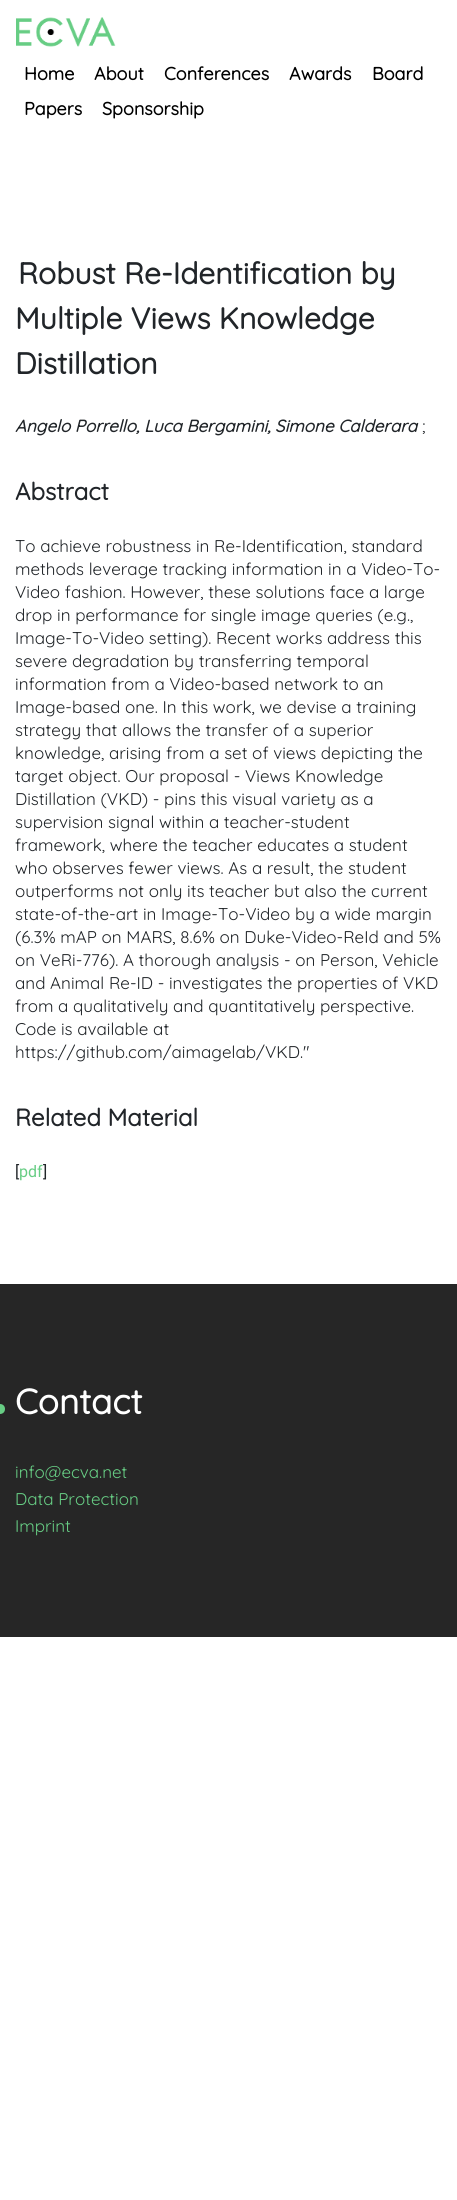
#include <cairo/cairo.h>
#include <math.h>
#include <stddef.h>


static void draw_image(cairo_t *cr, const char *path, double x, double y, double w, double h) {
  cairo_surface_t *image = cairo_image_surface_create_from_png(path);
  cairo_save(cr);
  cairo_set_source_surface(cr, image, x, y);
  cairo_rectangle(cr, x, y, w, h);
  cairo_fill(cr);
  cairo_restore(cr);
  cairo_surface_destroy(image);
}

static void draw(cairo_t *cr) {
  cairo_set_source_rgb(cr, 1, 1, 1);
  cairo_paint(cr);
  draw_image(cr, "images/1.png", 16, 17, 100, 30);
  cairo_set_source_rgb(cr, 38 / 255.0, 38 / 255.0, 38 / 255.0);
  cairo_rectangle(cr, 0, 1284, 457, 353);
  cairo_fill(cr);
  cairo_set_source_rgb(cr, 103 / 255.0, 205 / 255.0, 132 / 255.0);
  cairo_arc(cr, 0, 1409, 5, 0, 2 * M_PI);
  cairo_fill(cr);
  cairo_select_font_face(cr, "Quicksand", CAIRO_FONT_SLANT_NORMAL, CAIRO_FONT_WEIGHT_BOLD);
  cairo_set_font_size(cr, 18);
  cairo_set_source_rgb(cr, 0, 0, 0);
  cairo_move_to(cr, 24, 80);
  cairo_show_text(cr, "Home");
  cairo_move_to(cr, 94, 80);
  cairo_show_text(cr, "About");
  cairo_move_to(cr, 164, 80);
  cairo_show_text(cr, "Conferences");
  cairo_move_to(cr, 289, 80);
  cairo_show_text(cr, "Awards");
  cairo_move_to(cr, 372, 80);
  cairo_show_text(cr, "Board");
  cairo_move_to(cr, 24, 115);
  cairo_show_text(cr, "Papers");
  cairo_move_to(cr, 102, 115);
  cairo_show_text(cr, "Sponsorship");
  cairo_set_font_size(cr, 30);
  cairo_set_source_rgb(cr, 33 / 255.0, 37 / 255.0, 41 / 255.0);
  cairo_move_to(cr, 18, 284);
  cairo_show_text(cr, "Robust Re-Identification by");
  cairo_move_to(cr, 15, 329);
  cairo_show_text(cr, "Multiple Views Knowledge");
  cairo_move_to(cr, 15, 374);
  cairo_show_text(cr, "Distillation");
  cairo_select_font_face(cr, "Quicksand", CAIRO_FONT_SLANT_ITALIC, CAIRO_FONT_WEIGHT_BOLD);
  cairo_set_font_size(cr, 17);
  cairo_move_to(cr, 15, 432);
  cairo_show_text(cr, "Angelo Porrello, Luca Bergamini, Simone Calderara");
  cairo_select_font_face(cr, "Quicksand Light", CAIRO_FONT_SLANT_NORMAL, CAIRO_FONT_WEIGHT_NORMAL);
  cairo_move_to(cr, 422, 432);
  cairo_show_text(cr, ";");
  cairo_select_font_face(cr, "Quicksand", CAIRO_FONT_SLANT_NORMAL, CAIRO_FONT_WEIGHT_BOLD);
  cairo_set_font_size(cr, 24);
  cairo_move_to(cr, 15, 500);
  cairo_show_text(cr, "Abstract");
  cairo_select_font_face(cr, "Quicksand Light", CAIRO_FONT_SLANT_NORMAL, CAIRO_FONT_WEIGHT_NORMAL);
  cairo_set_font_size(cr, 17);
  cairo_move_to(cr, 15, 552);
  cairo_show_text(cr, "To achieve robustness in Re-Identification, standard");
  cairo_move_to(cr, 15, 575);
  cairo_show_text(cr, "methods leverage tracking information in a Video-To-");
  cairo_move_to(cr, 15, 598);
  cairo_show_text(cr, "Video fashion. However, these solutions face a large");
  cairo_move_to(cr, 15, 621);
  cairo_show_text(cr, "drop in performance for single image queries (e.g.,");
  cairo_move_to(cr, 15, 644);
  cairo_show_text(cr, "Image-To-Video setting). Recent works address this");
  cairo_move_to(cr, 15, 667);
  cairo_show_text(cr, "severe degradation by transferring temporal");
  cairo_move_to(cr, 15, 690);
  cairo_show_text(cr, "information from a Video-based network to an");
  cairo_move_to(cr, 15, 713);
  cairo_show_text(cr, "Image-based one. In this work, we devise a training");
  cairo_move_to(cr, 15, 736);
  cairo_show_text(cr, "strategy that allows the transfer of a superior");
  cairo_move_to(cr, 15, 759);
  cairo_show_text(cr, "knowledge, arising from a set of views depicting the");
  cairo_move_to(cr, 15, 782);
  cairo_show_text(cr, "target object. Our proposal - Views Knowledge");
  cairo_move_to(cr, 15, 805);
  cairo_show_text(cr, "Distillation (VKD) - pins this visual variety as a");
  cairo_move_to(cr, 15, 828);
  cairo_show_text(cr, "supervision signal within a teacher-student");
  cairo_move_to(cr, 15, 851);
  cairo_show_text(cr, "framework, where the teacher educates a student");
  cairo_move_to(cr, 15, 874);
  cairo_show_text(cr, "who observes fewer views. As a result, the student");
  cairo_move_to(cr, 15, 897);
  cairo_show_text(cr, "outperforms not only its teacher but also the current");
  cairo_move_to(cr, 15, 920);
  cairo_show_text(cr, "state-of-the-art in Image-To-Video by a wide margin");
  cairo_move_to(cr, 15, 943);
  cairo_show_text(cr, "(6.3% mAP on MARS, 8.6% on Duke-Video-ReId and 5%");
  cairo_move_to(cr, 15, 966);
  cairo_show_text(cr, "on VeRi-776). A thorough analysis - on Person, Vehicle");
  cairo_move_to(cr, 15, 989);
  cairo_show_text(cr, "and Animal Re-ID - investigates the properties of VKD");
  cairo_move_to(cr, 15, 1012);
  cairo_show_text(cr, "from a qualitatively and quantitatively perspective.");
  cairo_move_to(cr, 15, 1035);
  cairo_show_text(cr, "Code is available at");
  cairo_move_to(cr, 15, 1058);
  cairo_show_text(cr, "https://github.com/aimagelab/VKD.\"");
  cairo_select_font_face(cr, "Quicksand", CAIRO_FONT_SLANT_NORMAL, CAIRO_FONT_WEIGHT_BOLD);
  cairo_set_font_size(cr, 24);
  cairo_move_to(cr, 15, 1126);
  cairo_show_text(cr, "Related Material");
  cairo_select_font_face(cr, "Roboto", CAIRO_FONT_SLANT_NORMAL, CAIRO_FONT_WEIGHT_NORMAL);
  cairo_set_font_size(cr, 16);
  cairo_move_to(cr, 15, 1177);
  cairo_show_text(cr, "[");
  cairo_set_source_rgb(cr, 103 / 255.0, 205 / 255.0, 132 / 255.0);
  cairo_move_to(cr, 19, 1177);
  cairo_show_text(cr, "pdf");
  cairo_set_source_rgb(cr, 33 / 255.0, 37 / 255.0, 41 / 255.0);
  cairo_move_to(cr, 43, 1177);
  cairo_show_text(cr, "]");
  cairo_select_font_face(cr, "Quicksand", CAIRO_FONT_SLANT_NORMAL, CAIRO_FONT_WEIGHT_BOLD);
  cairo_set_font_size(cr, 35);
  cairo_set_source_rgb(cr, 1, 1, 1);
  cairo_move_to(cr, 15, 1414);
  cairo_show_text(cr, "Contact");
  cairo_select_font_face(cr, "Quicksand Light", CAIRO_FONT_SLANT_NORMAL, CAIRO_FONT_WEIGHT_NORMAL);
  cairo_set_font_size(cr, 17);
  cairo_set_source_rgb(cr, 103 / 255.0, 205 / 255.0, 132 / 255.0);
  cairo_move_to(cr, 15, 1478);
  cairo_show_text(cr, "info@ecva.net");
  cairo_move_to(cr, 15, 1505);
  cairo_show_text(cr, "Data Protection");
  cairo_move_to(cr, 15, 1532);
  cairo_show_text(cr, "Imprint");
}

int main(void) {
  cairo_surface_t *surface = cairo_image_surface_create(CAIRO_FORMAT_RGB24, 457, 2200);
  cairo_t *cr = cairo_create(surface);
  cairo_font_options_t *options = cairo_font_options_create();
  cairo_font_options_set_hint_metrics(options, CAIRO_HINT_METRICS_OFF);
  cairo_font_options_set_hint_style(options, CAIRO_HINT_STYLE_NONE);
  cairo_set_font_options(cr, options);
  cairo_set_miter_limit(cr, 4);
  draw(cr);
  cairo_surface_write_to_png(surface, "out.png");
  cairo_font_options_destroy(options);
  cairo_destroy(cr);
  cairo_surface_destroy(surface);
  return 0;
}
